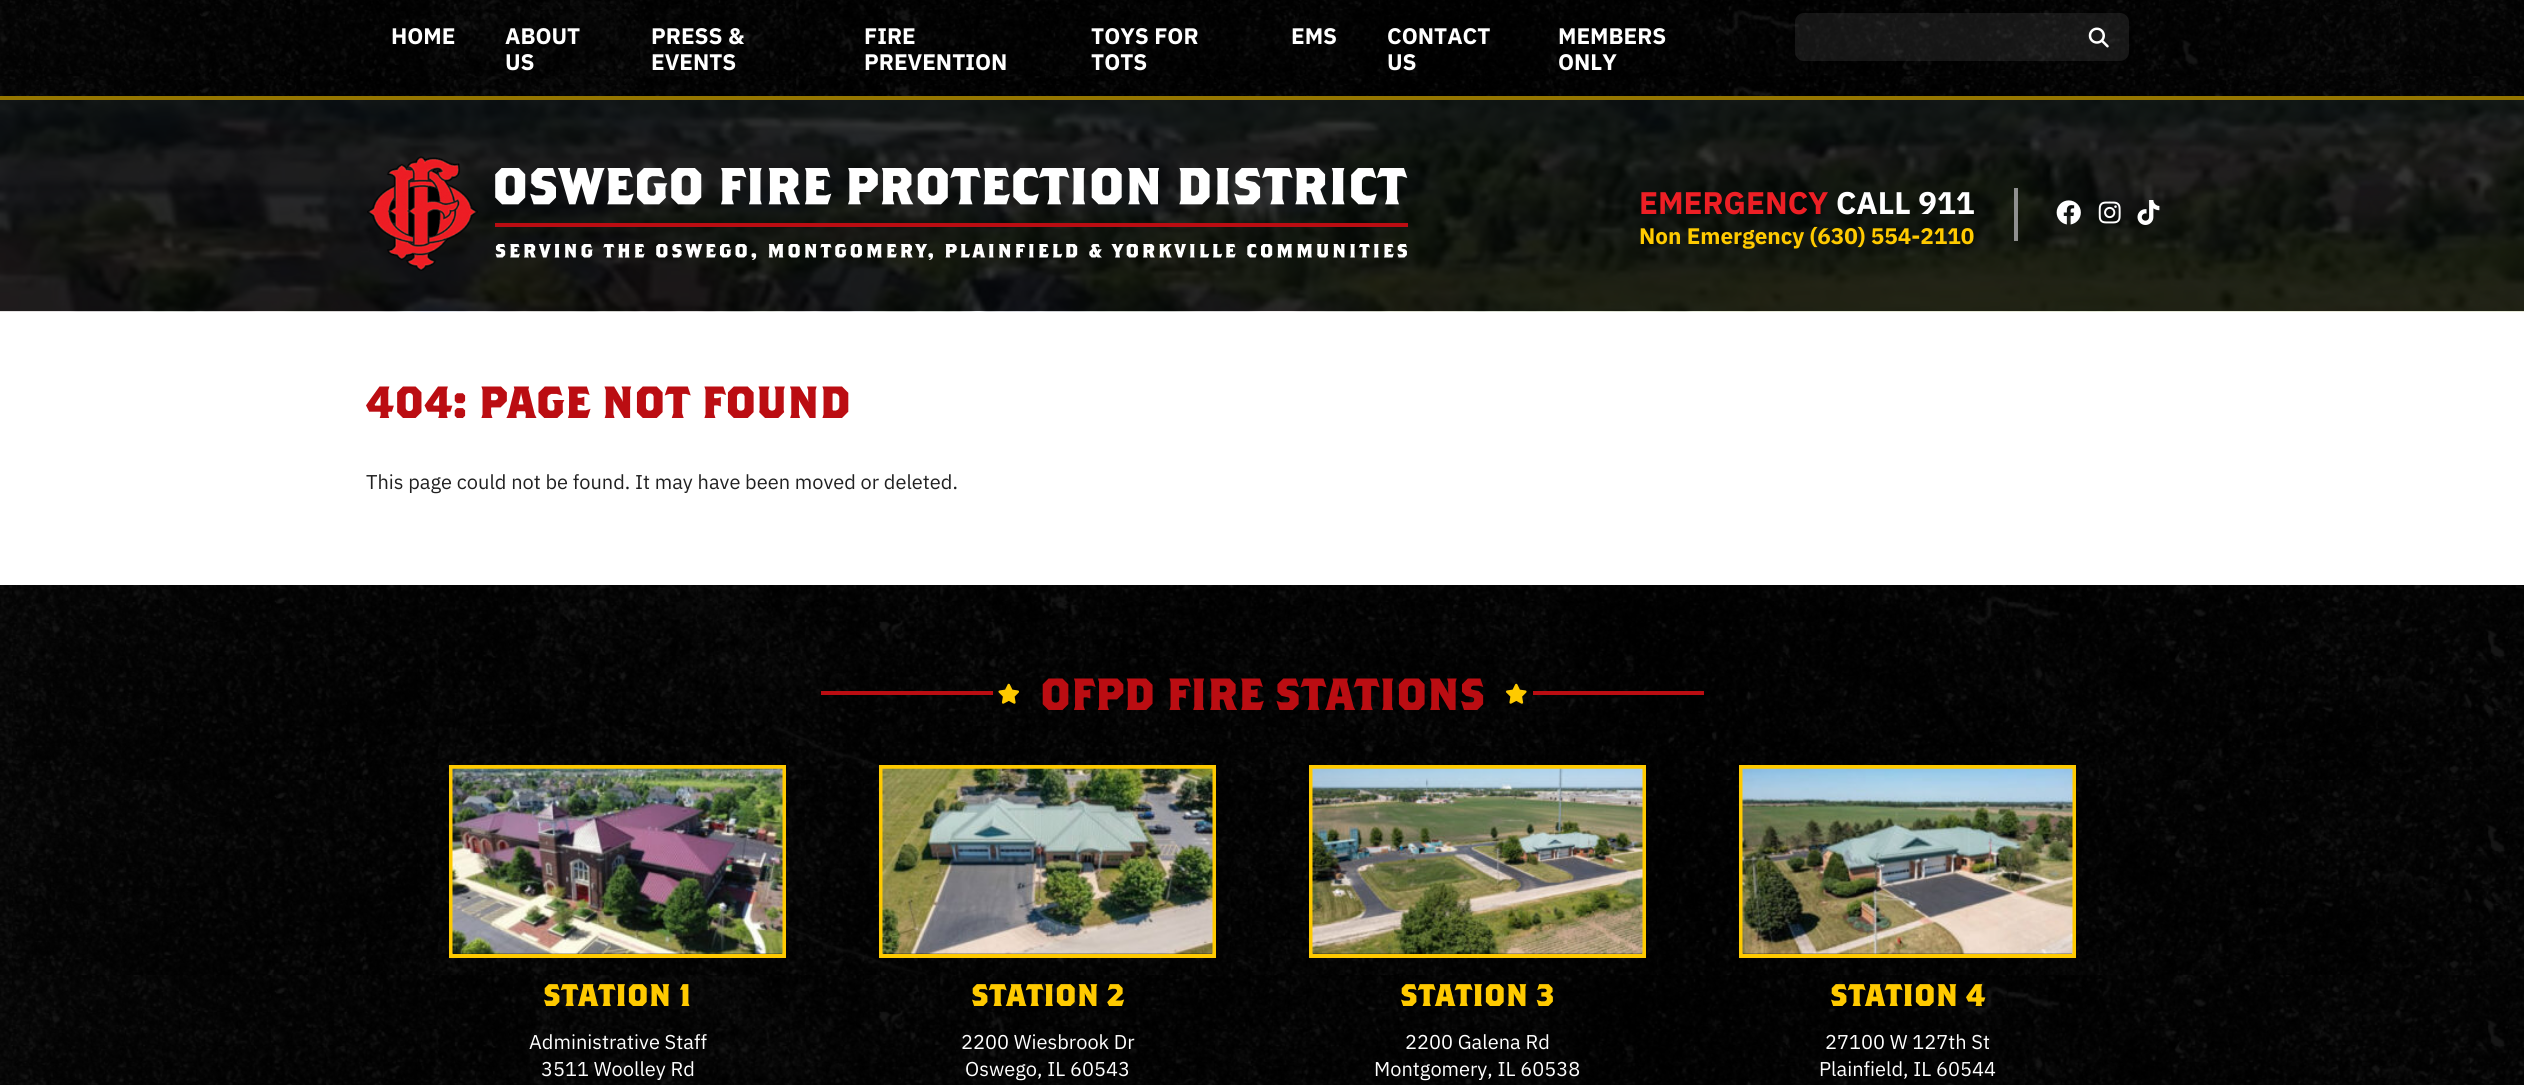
#include <cairo/cairo.h>
#include <math.h>
#include <stddef.h>


static void rounded_rect(cairo_t *cr, double x, double y, double w, double h, double r) {
  cairo_new_sub_path(cr);
  cairo_arc(cr, x + w - r, y + h - r, r, 0, M_PI / 2);
  cairo_arc(cr, x + r, y + h - r, r, M_PI / 2, M_PI);
  cairo_arc(cr, x + r, y + r, r, M_PI, 1.5 * M_PI);
  cairo_arc(cr, x + w - r, y + r, r, 1.5 * M_PI, 2 * M_PI);
  cairo_close_path(cr);
}

static void draw_image(cairo_t *cr, const char *path, double x, double y, double w, double h) {
  cairo_surface_t *image = cairo_image_surface_create_from_png(path);
  cairo_save(cr);
  cairo_set_source_surface(cr, image, x, y);
  cairo_rectangle(cr, x, y, w, h);
  cairo_fill(cr);
  cairo_restore(cr);
  cairo_surface_destroy(image);
}

static void draw(cairo_t *cr) {
  cairo_set_source_rgb(cr, 0, 0, 0);
  cairo_paint(cr);
  draw_image(cr, "images/1.png", 0, 0, 2524, 96);
  cairo_set_source_rgb(cr, 149 / 255.0, 118 / 255.0, 0);
  cairo_rectangle(cr, 0, 96, 2524, 4);
  cairo_fill(cr);
  cairo_set_source_rgba(cr, 216 / 255.0, 216 / 255.0, 216 / 255.0, 0.1);
  rounded_rect(cr, 1795, 13, 334, 48, 9);
  cairo_fill(cr);
  draw_image(cr, "images/2.png", 2088, 27, 21, 21);
  cairo_set_source_rgb(cr, 1, 1, 1);
  cairo_rectangle(cr, 0, 311, 2524, 274);
  cairo_fill(cr);
  draw_image(cr, "images/3.png", 0, 100, 2524, 212);
  draw_image(cr, "images/4.png", 367, 156, 111, 115);
  draw_image(cr, "images/5.png", 495, 168, 913, 37);
  cairo_set_source_rgb(cr, 187 / 255.0, 13 / 255.0, 18 / 255.0);
  cairo_rectangle(cr, 495, 223, 913, 4);
  cairo_fill(cr);
  draw_image(cr, "images/6.png", 495, 244, 912, 16);
  cairo_set_source_rgb(cr, 144 / 255.0, 144 / 255.0, 144 / 255.0);
  cairo_rectangle(cr, 2014, 188, 4, 53);
  cairo_fill(cr);
  draw_image(cr, "images/7.png", 2056, 200, 25, 25);
  draw_image(cr, "images/8.png", 2098, 201, 23, 23);
  draw_image(cr, "images/9.png", 2137, 200, 23, 25);
  draw_image(cr, "images/10.png", 0, 585, 2524, 500);
  cairo_set_source_rgb(cr, 187 / 255.0, 13 / 255.0, 18 / 255.0);
  cairo_rectangle(cr, 821, 691, 172, 4);
  cairo_fill(cr);
  draw_image(cr, "images/11.png", 998, 683, 21, 21);
  draw_image(cr, "images/12.png", 1506, 683, 21, 21);
  cairo_rectangle(cr, 1533, 691, 171, 4);
  cairo_fill(cr);
  cairo_rectangle(cr, 451, 767, 333, 189);
  cairo_set_source_rgb(cr, 1, 202 / 255.0, 0);
  cairo_set_line_width(cr, 4);
  cairo_stroke(cr);
  draw_image(cr, "images/13.png", 452, 768, 331, 186);
  cairo_rectangle(cr, 881, 767, 333, 189);
  cairo_stroke(cr);
  draw_image(cr, "images/14.png", 882, 768, 331, 186);
  cairo_rectangle(cr, 1311, 767, 333, 189);
  cairo_stroke(cr);
  draw_image(cr, "images/15.png", 1312, 768, 331, 186);
  cairo_rectangle(cr, 1741, 767, 333, 189);
  cairo_stroke(cr);
  draw_image(cr, "images/16.png", 1742, 768, 331, 186);
  cairo_select_font_face(cr, "IBM Plex Sans", CAIRO_FONT_SLANT_NORMAL, CAIRO_FONT_WEIGHT_BOLD);
  cairo_set_font_size(cr, 22.5);
  cairo_set_source_rgb(cr, 1, 1, 1);
  cairo_move_to(cr, 391, 44);
  cairo_show_text(cr, "HOME");
  cairo_move_to(cr, 505, 44);
  cairo_show_text(cr, "ABOUT");
  cairo_move_to(cr, 505, 70);
  cairo_show_text(cr, "US");
  cairo_move_to(cr, 651, 44);
  cairo_show_text(cr, "PRESS &");
  cairo_move_to(cr, 651, 70);
  cairo_show_text(cr, "EVENTS");
  cairo_move_to(cr, 864, 44);
  cairo_show_text(cr, "FIRE");
  cairo_move_to(cr, 864, 70);
  cairo_show_text(cr, "PREVENTION");
  cairo_move_to(cr, 1091, 44);
  cairo_show_text(cr, "TOYS FOR");
  cairo_move_to(cr, 1091, 70);
  cairo_show_text(cr, "TOTS");
  cairo_move_to(cr, 1291, 44);
  cairo_show_text(cr, "EMS");
  cairo_move_to(cr, 1387, 44);
  cairo_show_text(cr, "CONTACT");
  cairo_move_to(cr, 1387, 70);
  cairo_show_text(cr, "US");
  cairo_move_to(cr, 1558, 44);
  cairo_show_text(cr, "MEMBERS");
  cairo_move_to(cr, 1558, 70);
  cairo_show_text(cr, "ONLY");
  cairo_set_font_size(cr, 31.25);
  cairo_set_source_rgb(cr, 237 / 255.0, 31 / 255.0, 37 / 255.0);
  cairo_move_to(cr, 1639, 214);
  cairo_show_text(cr, "EMERGENCY");
  cairo_set_source_rgb(cr, 1, 1, 1);
  cairo_move_to(cr, 1836, 214);
  cairo_show_text(cr, "CALL 911");
  cairo_set_font_size(cr, 22.5);
  cairo_set_source_rgb(cr, 1, 202 / 255.0, 0);
  cairo_move_to(cr, 1639, 244);
  cairo_show_text(cr, "Non Emergency (630) 554-2110");
  cairo_select_font_face(cr, "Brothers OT", CAIRO_FONT_SLANT_NORMAL, CAIRO_FONT_WEIGHT_BOLD);
  cairo_set_font_size(cr, 45);
  cairo_set_source_rgb(cr, 187 / 255.0, 13 / 255.0, 18 / 255.0);
  cairo_move_to(cr, 366, 418);
  cairo_show_text(cr, "404: PAGE NOT FOUND");
  cairo_select_font_face(cr, "IBM Plex Sans", CAIRO_FONT_SLANT_NORMAL, CAIRO_FONT_WEIGHT_NORMAL);
  cairo_set_font_size(cr, 20);
  cairo_set_source_rgb(cr, 33 / 255.0, 33 / 255.0, 33 / 255.0);
  cairo_move_to(cr, 366, 489);
  cairo_show_text(cr, "This page could not be found. It may have been moved or deleted.");
  cairo_select_font_face(cr, "Brothers OT", CAIRO_FONT_SLANT_NORMAL, CAIRO_FONT_WEIGHT_BOLD);
  cairo_set_font_size(cr, 45);
  cairo_set_source_rgb(cr, 187 / 255.0, 13 / 255.0, 18 / 255.0);
  cairo_move_to(cr, 1040, 710);
  cairo_show_text(cr, "OFPD FIRE STATIONS");
  cairo_set_font_size(cr, 31.25);
  cairo_set_source_rgb(cr, 1, 202 / 255.0, 0);
  cairo_move_to(cr, 543, 1006);
  cairo_show_text(cr, "STATION 1");
  cairo_select_font_face(cr, "IBM Plex Sans", CAIRO_FONT_SLANT_NORMAL, CAIRO_FONT_WEIGHT_NORMAL);
  cairo_set_font_size(cr, 20);
  cairo_set_source_rgb(cr, 1, 1, 1);
  cairo_move_to(cr, 529, 1049);
  cairo_show_text(cr, "Administrative Staff");
  cairo_move_to(cr, 541, 1076);
  cairo_show_text(cr, "3511 Woolley Rd");
  cairo_select_font_face(cr, "Brothers OT", CAIRO_FONT_SLANT_NORMAL, CAIRO_FONT_WEIGHT_BOLD);
  cairo_set_font_size(cr, 31.25);
  cairo_set_source_rgb(cr, 1, 202 / 255.0, 0);
  cairo_move_to(cr, 971, 1006);
  cairo_show_text(cr, "STATION 2");
  cairo_select_font_face(cr, "IBM Plex Sans", CAIRO_FONT_SLANT_NORMAL, CAIRO_FONT_WEIGHT_NORMAL);
  cairo_set_font_size(cr, 20);
  cairo_set_source_rgb(cr, 1, 1, 1);
  cairo_move_to(cr, 961, 1049);
  cairo_show_text(cr, "2200 Wiesbrook Dr");
  cairo_move_to(cr, 965, 1076);
  cairo_show_text(cr, "Oswego, IL 60543");
  cairo_select_font_face(cr, "Brothers OT", CAIRO_FONT_SLANT_NORMAL, CAIRO_FONT_WEIGHT_BOLD);
  cairo_set_font_size(cr, 31.25);
  cairo_set_source_rgb(cr, 1, 202 / 255.0, 0);
  cairo_move_to(cr, 1400, 1006);
  cairo_show_text(cr, "STATION 3");
  cairo_select_font_face(cr, "IBM Plex Sans", CAIRO_FONT_SLANT_NORMAL, CAIRO_FONT_WEIGHT_NORMAL);
  cairo_set_font_size(cr, 20);
  cairo_set_source_rgb(cr, 1, 1, 1);
  cairo_move_to(cr, 1405, 1049);
  cairo_show_text(cr, "2200 Galena Rd");
  cairo_move_to(cr, 1374, 1076);
  cairo_show_text(cr, "Montgomery, IL 60538");
  cairo_select_font_face(cr, "Brothers OT", CAIRO_FONT_SLANT_NORMAL, CAIRO_FONT_WEIGHT_BOLD);
  cairo_set_font_size(cr, 31.25);
  cairo_set_source_rgb(cr, 1, 202 / 255.0, 0);
  cairo_move_to(cr, 1830, 1006);
  cairo_show_text(cr, "STATION 4");
  cairo_select_font_face(cr, "IBM Plex Sans", CAIRO_FONT_SLANT_NORMAL, CAIRO_FONT_WEIGHT_NORMAL);
  cairo_set_font_size(cr, 20);
  cairo_set_source_rgb(cr, 1, 1, 1);
  cairo_move_to(cr, 1825, 1049);
  cairo_show_text(cr, "27100 W 127th St");
  cairo_move_to(cr, 1819, 1076);
  cairo_show_text(cr, "Plainfield, IL 60544");
}

int main(void) {
  cairo_surface_t *surface = cairo_image_surface_create(CAIRO_FORMAT_RGB24, 2524, 1085);
  cairo_t *cr = cairo_create(surface);
  cairo_font_options_t *options = cairo_font_options_create();
  cairo_font_options_set_hint_metrics(options, CAIRO_HINT_METRICS_OFF);
  cairo_font_options_set_hint_style(options, CAIRO_HINT_STYLE_NONE);
  cairo_set_font_options(cr, options);
  cairo_set_miter_limit(cr, 4);
  draw(cr);
  cairo_surface_write_to_png(surface, "out.png");
  cairo_font_options_destroy(options);
  cairo_destroy(cr);
  cairo_surface_destroy(surface);
  return 0;
}
